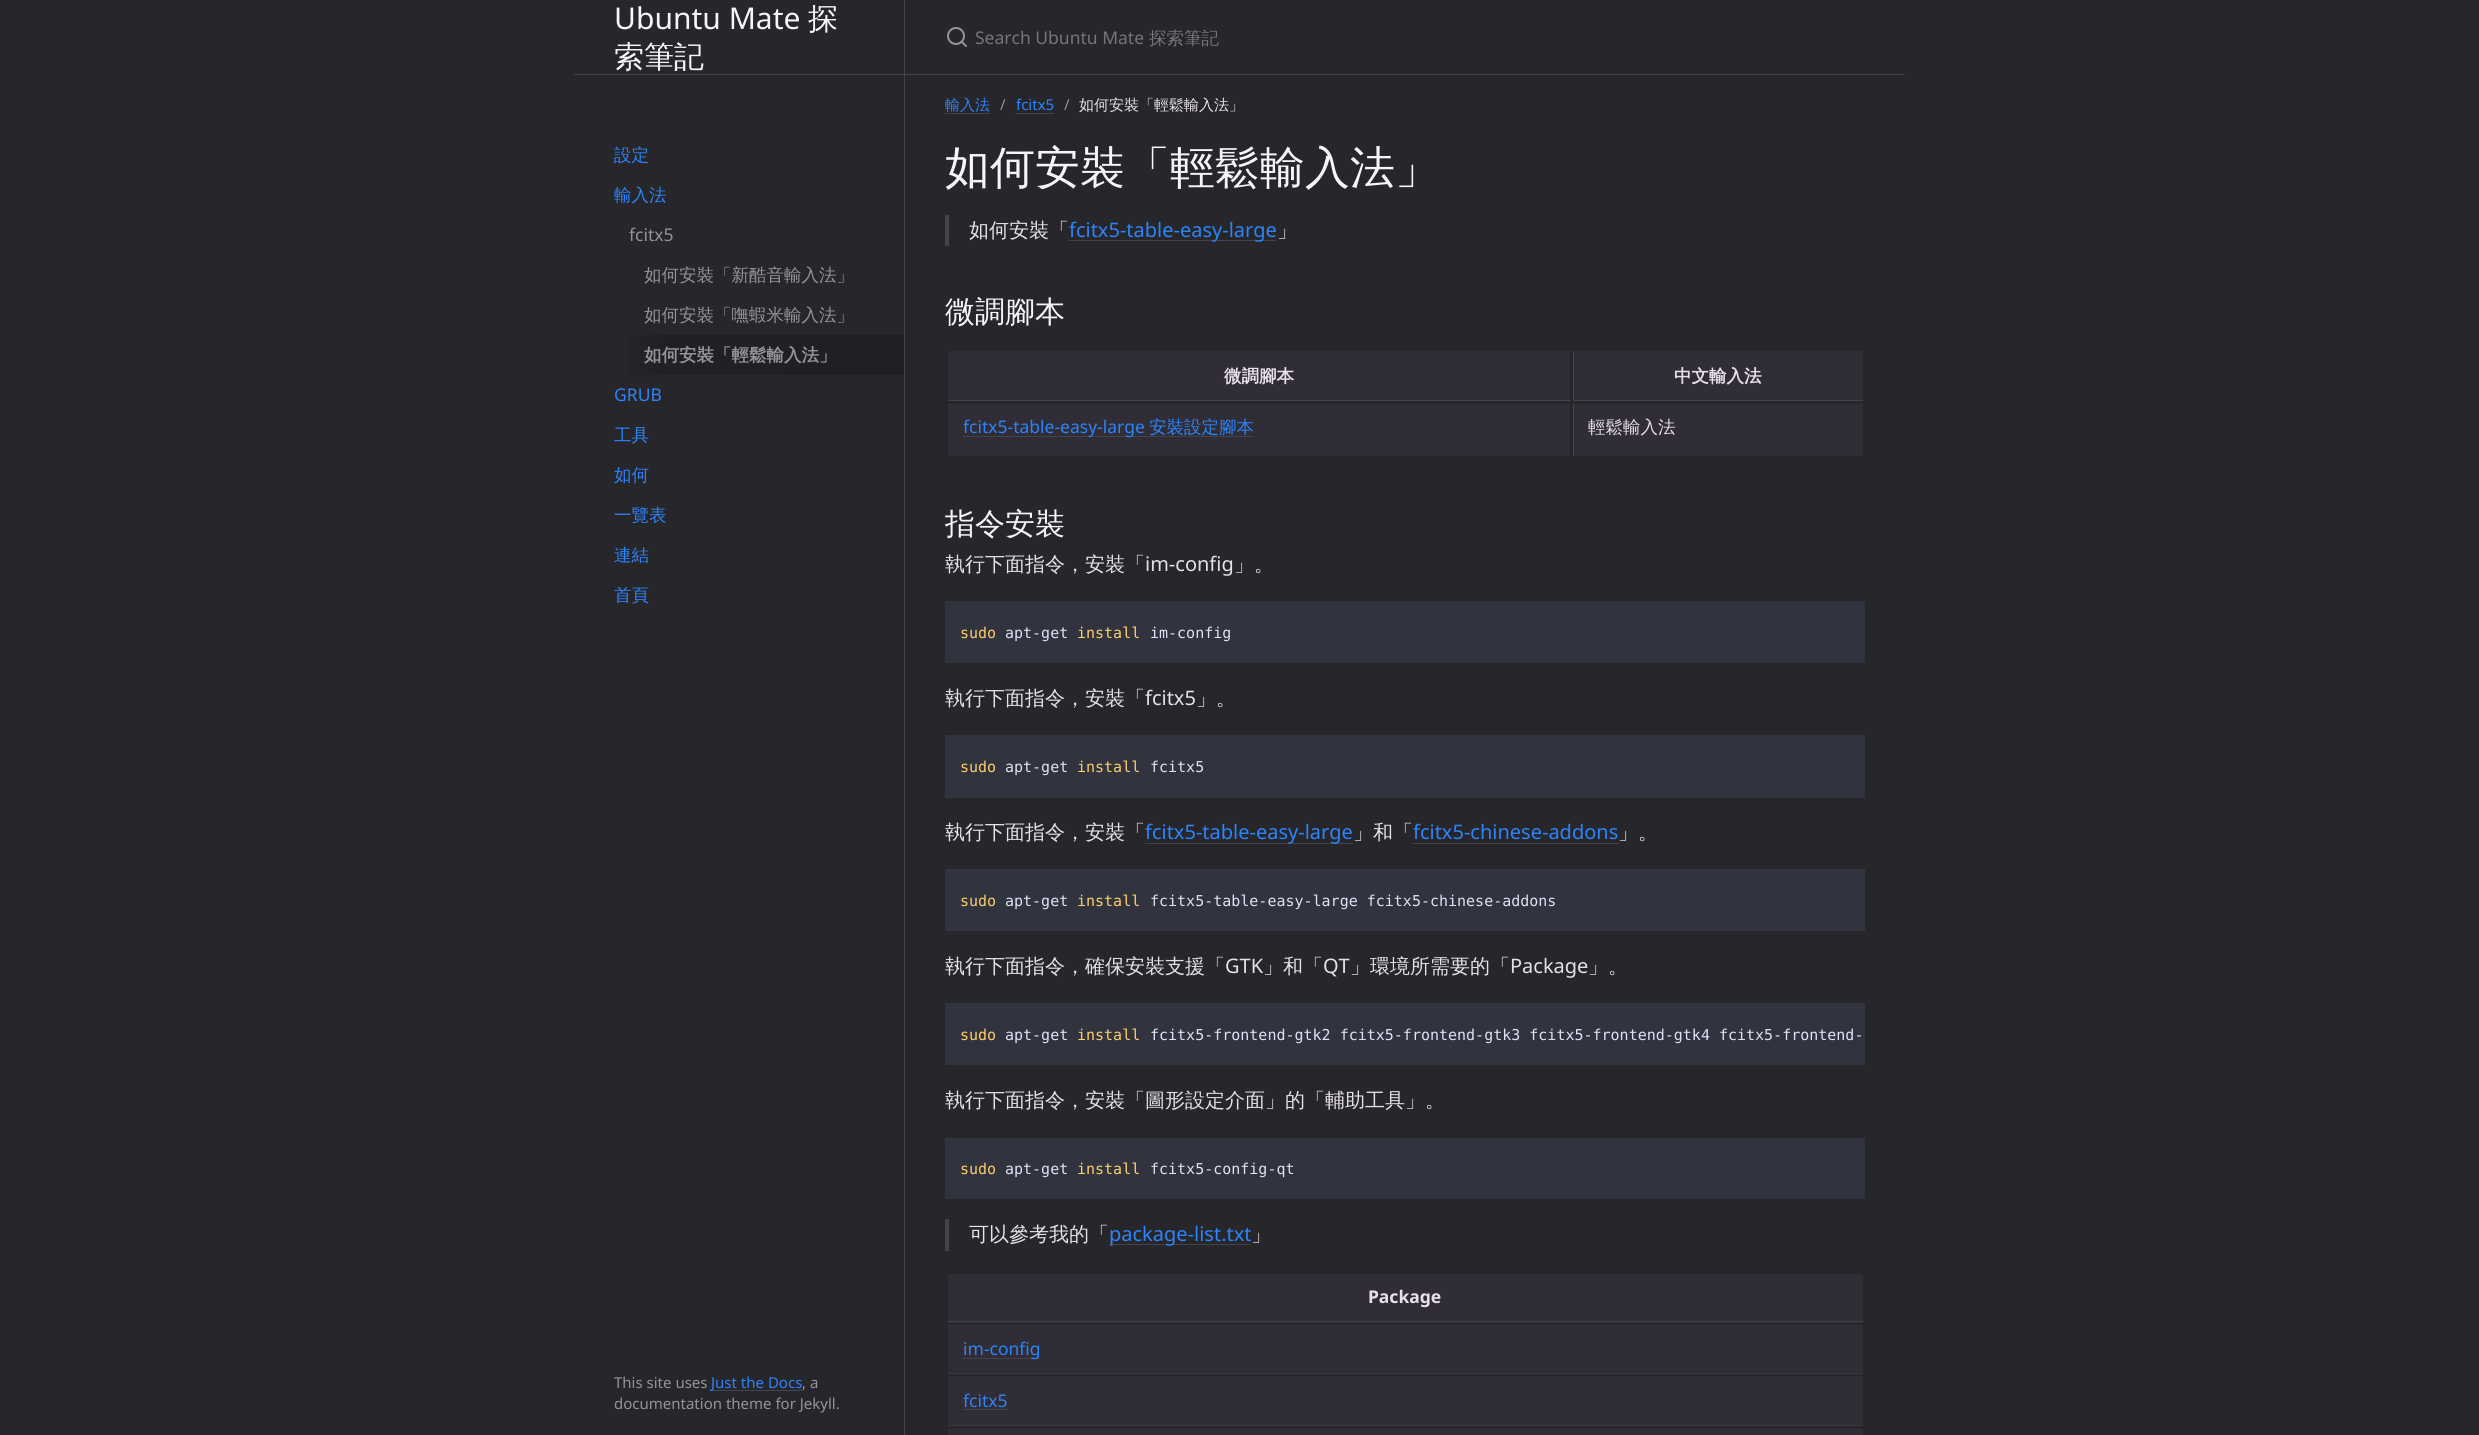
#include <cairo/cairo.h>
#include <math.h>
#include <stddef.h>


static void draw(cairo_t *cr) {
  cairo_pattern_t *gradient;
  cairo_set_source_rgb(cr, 39 / 255.0, 38 / 255.0, 43 / 255.0);
  cairo_paint(cr);
  cairo_set_source_rgb(cr, 68 / 255.0, 67 / 255.0, 77 / 255.0);
  cairo_rectangle(cr, 904, 0, 1, 1435);
  cairo_fill(cr);
  cairo_rectangle(cr, 574, 74, 330, 1);
  cairo_fill(cr);
  gradient = cairo_pattern_create_linear(904, 355, 604, 355);
  cairo_pattern_add_color_stop_rgba(gradient, 0, 32 / 255.0, 31 / 255.0, 35 / 255.0, 1);
  cairo_pattern_add_color_stop_rgba(gradient, 0.8, 33 / 255.0, 32 / 255.0, 37 / 255.0, 1);
  cairo_pattern_add_color_stop_rgba(gradient, 1, 39 / 255.0, 38 / 255.0, 43 / 255.0, 1);
  cairo_set_source(cr, gradient);
  cairo_pattern_destroy(gradient);
  cairo_rectangle(cr, 629, 335, 275, 40);
  cairo_fill(cr);
  cairo_set_source_rgb(cr, 68 / 255.0, 67 / 255.0, 77 / 255.0);
  cairo_rectangle(cr, 711, 1390, 92, 1);
  cairo_fill(cr);
  cairo_rectangle(cr, 905, 74, 1000, 1);
  cairo_fill(cr);
  cairo_arc(cr, 956, 36, 8, 0, 2 * M_PI);
  cairo_set_source_rgb(cr, 149 / 255.0, 147 / 255.0, 150 / 255.0);
  cairo_stroke(cr);
  cairo_new_path(cr);
  cairo_move_to(cr, 966, 46);
  cairo_line_to(cr, 961.5, 41.5);
  cairo_set_line_cap(cr, CAIRO_LINE_CAP_ROUND);
  cairo_set_line_join(cr, CAIRO_LINE_JOIN_ROUND);
  cairo_stroke(cr);
  cairo_set_source_rgb(cr, 68 / 255.0, 67 / 255.0, 77 / 255.0);
  cairo_rectangle(cr, 945, 113, 45, 1);
  cairo_fill(cr);
  cairo_rectangle(cr, 1015, 113, 39, 1);
  cairo_fill(cr);
  cairo_rectangle(cr, 945, 215, 4, 31);
  cairo_fill(cr);
  cairo_rectangle(cr, 1069, 240, 207, 1);
  cairo_fill(cr);
  cairo_set_source_rgb(cr, 48 / 255.0, 45 / 255.0, 54 / 255.0);
  cairo_rectangle(cr, 948, 351, 622, 49);
  cairo_fill(cr);
  cairo_set_source_rgb(cr, 68 / 255.0, 67 / 255.0, 77 / 255.0);
  cairo_rectangle(cr, 948, 400, 622, 1);
  cairo_fill(cr);
  cairo_set_source_rgb(cr, 48 / 255.0, 45 / 255.0, 54 / 255.0);
  cairo_rectangle(cr, 1574, 351, 289, 49);
  cairo_fill(cr);
  cairo_set_source_rgb(cr, 68 / 255.0, 67 / 255.0, 77 / 255.0);
  cairo_rectangle(cr, 1573, 400, 290, 1);
  cairo_fill(cr);
  cairo_rectangle(cr, 1573, 351, 1, 50);
  cairo_fill(cr);
  cairo_set_source_rgb(cr, 48 / 255.0, 45 / 255.0, 54 / 255.0);
  cairo_rectangle(cr, 948, 404, 622, 52);
  cairo_fill(cr);
  cairo_set_source_rgb(cr, 68 / 255.0, 67 / 255.0, 77 / 255.0);
  cairo_rectangle(cr, 963, 436, 291, 1);
  cairo_fill(cr);
  cairo_set_source_rgb(cr, 48 / 255.0, 45 / 255.0, 54 / 255.0);
  cairo_rectangle(cr, 1574, 404, 289, 52);
  cairo_fill(cr);
  cairo_set_source_rgb(cr, 68 / 255.0, 67 / 255.0, 77 / 255.0);
  cairo_rectangle(cr, 1573, 404, 1, 52);
  cairo_fill(cr);
  cairo_set_source_rgb(cr, 49 / 255.0, 52 / 255.0, 63 / 255.0);
  cairo_rectangle(cr, 945, 601, 920, 62);
  cairo_fill(cr);
  cairo_rectangle(cr, 945, 735, 920, 63);
  cairo_fill(cr);
  cairo_set_source_rgb(cr, 68 / 255.0, 67 / 255.0, 77 / 255.0);
  cairo_rectangle(cr, 1145, 843, 208, 1);
  cairo_fill(cr);
  cairo_rectangle(cr, 1413, 843, 206, 1);
  cairo_fill(cr);
  cairo_set_source_rgb(cr, 49 / 255.0, 52 / 255.0, 63 / 255.0);
  cairo_rectangle(cr, 945, 869, 920, 62);
  cairo_fill(cr);
  cairo_rectangle(cr, 945, 1003, 920, 62);
  cairo_fill(cr);
  cairo_rectangle(cr, 945, 1138, 920, 61);
  cairo_fill(cr);
  cairo_set_source_rgb(cr, 68 / 255.0, 67 / 255.0, 77 / 255.0);
  cairo_rectangle(cr, 945, 1219, 4, 32);
  cairo_fill(cr);
  cairo_rectangle(cr, 1109, 1244, 142, 1);
  cairo_fill(cr);
  cairo_set_source_rgb(cr, 48 / 255.0, 45 / 255.0, 54 / 255.0);
  cairo_rectangle(cr, 948, 1274, 915, 49);
  cairo_fill(cr);
  cairo_set_source_rgb(cr, 68 / 255.0, 67 / 255.0, 77 / 255.0);
  cairo_rectangle(cr, 948, 1321, 915, 1);
  cairo_fill(cr);
  cairo_set_source_rgb(cr, 48 / 255.0, 45 / 255.0, 54 / 255.0);
  cairo_rectangle(cr, 948, 1325, 915, 48);
  cairo_fill(cr);
  cairo_set_source_rgb(cr, 58 / 255.0, 56 / 255.0, 66 / 255.0);
  cairo_rectangle(cr, 948, 1373, 915, 1);
  cairo_fill(cr);
  cairo_set_source_rgb(cr, 68 / 255.0, 67 / 255.0, 77 / 255.0);
  cairo_rectangle(cr, 963, 1358, 77, 1);
  cairo_fill(cr);
  cairo_set_source_rgb(cr, 48 / 255.0, 45 / 255.0, 54 / 255.0);
  cairo_rectangle(cr, 948, 1376, 915, 49);
  cairo_fill(cr);
  cairo_set_source_rgb(cr, 58 / 255.0, 56 / 255.0, 66 / 255.0);
  cairo_rectangle(cr, 948, 1425, 915, 1);
  cairo_fill(cr);
  cairo_set_source_rgb(cr, 68 / 255.0, 67 / 255.0, 77 / 255.0);
  cairo_rectangle(cr, 963, 1409, 45, 1);
  cairo_fill(cr);
  cairo_set_source_rgb(cr, 48 / 255.0, 45 / 255.0, 54 / 255.0);
  cairo_rectangle(cr, 948, 1429, 915, 6);
  cairo_fill(cr);
  cairo_select_font_face(cr, "Noto Sans", CAIRO_FONT_SLANT_NORMAL, CAIRO_FONT_WEIGHT_NORMAL);
  cairo_set_font_size(cr, 30);
  cairo_set_source_rgb(cr, 245 / 255.0, 246 / 255.0, 250 / 255.0);
  cairo_move_to(cr, 614, 29);
  cairo_show_text(cr, "Ubuntu Mate");
  cairo_select_font_face(cr, "WenQuanYi Zen Hei Medium", CAIRO_FONT_SLANT_NORMAL, CAIRO_FONT_WEIGHT_NORMAL);
  cairo_move_to(cr, 808, 29);
  cairo_show_text(cr, "探");
  cairo_move_to(cr, 614, 67);
  cairo_show_text(cr, "索筆記");
  cairo_set_font_size(cr, 17.5);
  cairo_set_source_rgb(cr, 44 / 255.0, 132 / 255.0, 250 / 255.0);
  cairo_move_to(cr, 614, 161);
  cairo_show_text(cr, "設定");
  cairo_move_to(cr, 614, 201);
  cairo_show_text(cr, "輸入法");
  cairo_select_font_face(cr, "Noto Sans", CAIRO_FONT_SLANT_NORMAL, CAIRO_FONT_WEIGHT_NORMAL);
  cairo_set_source_rgb(cr, 149 / 255.0, 147 / 255.0, 150 / 255.0);
  cairo_move_to(cr, 629, 241);
  cairo_show_text(cr, "fcitx5");
  cairo_select_font_face(cr, "WenQuanYi Zen Hei Medium", CAIRO_FONT_SLANT_NORMAL, CAIRO_FONT_WEIGHT_NORMAL);
  cairo_move_to(cr, 644, 281);
  cairo_show_text(cr, "如何安裝「新酷音輸入法」");
  cairo_move_to(cr, 644, 321);
  cairo_show_text(cr, "如何安裝「嘸蝦米輸入法」");
  cairo_select_font_face(cr, "WenQuanYi Zen Hei", CAIRO_FONT_SLANT_NORMAL, CAIRO_FONT_WEIGHT_BOLD);
  cairo_move_to(cr, 644, 361);
  cairo_show_text(cr, "如何安裝「輕鬆輸入法」");
  cairo_select_font_face(cr, "Noto Sans", CAIRO_FONT_SLANT_NORMAL, CAIRO_FONT_WEIGHT_NORMAL);
  cairo_set_source_rgb(cr, 44 / 255.0, 132 / 255.0, 250 / 255.0);
  cairo_move_to(cr, 614, 401);
  cairo_show_text(cr, "GRUB");
  cairo_select_font_face(cr, "WenQuanYi Zen Hei Medium", CAIRO_FONT_SLANT_NORMAL, CAIRO_FONT_WEIGHT_NORMAL);
  cairo_move_to(cr, 614, 441);
  cairo_show_text(cr, "工具");
  cairo_move_to(cr, 614, 481);
  cairo_show_text(cr, "如何");
  cairo_move_to(cr, 614, 521);
  cairo_show_text(cr, "一覽表");
  cairo_move_to(cr, 614, 561);
  cairo_show_text(cr, "連結");
  cairo_move_to(cr, 614, 601);
  cairo_show_text(cr, "首頁");
  cairo_select_font_face(cr, "Noto Sans", CAIRO_FONT_SLANT_NORMAL, CAIRO_FONT_WEIGHT_NORMAL);
  cairo_set_font_size(cr, 15);
  cairo_set_source_rgb(cr, 149 / 255.0, 147 / 255.0, 150 / 255.0);
  cairo_move_to(cr, 614, 1388);
  cairo_show_text(cr, "This site uses");
  cairo_set_source_rgb(cr, 44 / 255.0, 132 / 255.0, 250 / 255.0);
  cairo_move_to(cr, 711, 1388);
  cairo_show_text(cr, "Just the Docs");
  cairo_set_source_rgb(cr, 149 / 255.0, 147 / 255.0, 150 / 255.0);
  cairo_move_to(cr, 802, 1388);
  cairo_show_text(cr, ", a");
  cairo_move_to(cr, 614, 1409);
  cairo_show_text(cr, "documentation theme for Jekyll.");
  cairo_set_font_size(cr, 17.5);
  cairo_set_source_rgb(cr, 117 / 255.0, 117 / 255.0, 117 / 255.0);
  cairo_move_to(cr, 975, 44);
  cairo_show_text(cr, "Search Ubuntu Mate");
  cairo_select_font_face(cr, "WenQuanYi Zen Hei Medium", CAIRO_FONT_SLANT_NORMAL, CAIRO_FONT_WEIGHT_NORMAL);
  cairo_move_to(cr, 1149, 44);
  cairo_show_text(cr, "探索筆記");
  cairo_set_font_size(cr, 15);
  cairo_set_source_rgb(cr, 44 / 255.0, 132 / 255.0, 250 / 255.0);
  cairo_move_to(cr, 945, 110);
  cairo_show_text(cr, "輸入法");
  cairo_select_font_face(cr, "Noto Sans", CAIRO_FONT_SLANT_NORMAL, CAIRO_FONT_WEIGHT_NORMAL);
  cairo_set_source_rgb(cr, 149 / 255.0, 147 / 255.0, 150 / 255.0);
  cairo_move_to(cr, 1000, 110);
  cairo_show_text(cr, "/");
  cairo_set_source_rgb(cr, 44 / 255.0, 132 / 255.0, 250 / 255.0);
  cairo_move_to(cr, 1016, 110);
  cairo_show_text(cr, "fcitx5");
  cairo_set_source_rgb(cr, 149 / 255.0, 147 / 255.0, 150 / 255.0);
  cairo_move_to(cr, 1064, 110);
  cairo_show_text(cr, "/");
  cairo_select_font_face(cr, "WenQuanYi Zen Hei Medium", CAIRO_FONT_SLANT_NORMAL, CAIRO_FONT_WEIGHT_NORMAL);
  cairo_set_source_rgb(cr, 230 / 255.0, 225 / 255.0, 232 / 255.0);
  cairo_move_to(cr, 1079, 110);
  cairo_show_text(cr, "如何安裝「輕鬆輸入法」");
  cairo_set_font_size(cr, 45);
  cairo_set_source_rgb(cr, 245 / 255.0, 246 / 255.0, 250 / 255.0);
  cairo_move_to(cr, 945, 183);
  cairo_show_text(cr, "如何安裝「輕鬆輸入法」");
  cairo_set_font_size(cr, 20);
  cairo_set_source_rgb(cr, 230 / 255.0, 225 / 255.0, 232 / 255.0);
  cairo_move_to(cr, 969, 237);
  cairo_show_text(cr, "如何安裝「");
  cairo_select_font_face(cr, "Noto Sans", CAIRO_FONT_SLANT_NORMAL, CAIRO_FONT_WEIGHT_NORMAL);
  cairo_set_source_rgb(cr, 44 / 255.0, 132 / 255.0, 250 / 255.0);
  cairo_move_to(cr, 1069, 237);
  cairo_show_text(cr, "fcitx5-table-easy-large");
  cairo_select_font_face(cr, "WenQuanYi Zen Hei Medium", CAIRO_FONT_SLANT_NORMAL, CAIRO_FONT_WEIGHT_NORMAL);
  cairo_set_source_rgb(cr, 230 / 255.0, 225 / 255.0, 232 / 255.0);
  cairo_move_to(cr, 1277, 237);
  cairo_show_text(cr, "」");
  cairo_set_font_size(cr, 30);
  cairo_set_source_rgb(cr, 245 / 255.0, 246 / 255.0, 250 / 255.0);
  cairo_move_to(cr, 945, 322);
  cairo_show_text(cr, "微調腳本");
  cairo_select_font_face(cr, "WenQuanYi Zen Hei", CAIRO_FONT_SLANT_NORMAL, CAIRO_FONT_WEIGHT_BOLD);
  cairo_set_font_size(cr, 17.5);
  cairo_set_source_rgb(cr, 230 / 255.0, 225 / 255.0, 232 / 255.0);
  cairo_move_to(cr, 1224, 382);
  cairo_show_text(cr, "微調腳本");
  cairo_move_to(cr, 1674, 382);
  cairo_show_text(cr, "中文輸入法");
  cairo_select_font_face(cr, "Noto Sans", CAIRO_FONT_SLANT_NORMAL, CAIRO_FONT_WEIGHT_NORMAL);
  cairo_set_source_rgb(cr, 44 / 255.0, 132 / 255.0, 250 / 255.0);
  cairo_move_to(cr, 963, 433);
  cairo_show_text(cr, "fcitx5-table-easy-large");
  cairo_select_font_face(cr, "WenQuanYi Zen Hei Medium", CAIRO_FONT_SLANT_NORMAL, CAIRO_FONT_WEIGHT_NORMAL);
  cairo_move_to(cr, 1149, 433);
  cairo_show_text(cr, "安裝設定腳本");
  cairo_set_source_rgb(cr, 230 / 255.0, 225 / 255.0, 232 / 255.0);
  cairo_move_to(cr, 1588, 433);
  cairo_show_text(cr, "輕鬆輸入法");
  cairo_set_font_size(cr, 30);
  cairo_set_source_rgb(cr, 245 / 255.0, 246 / 255.0, 250 / 255.0);
  cairo_move_to(cr, 945, 534);
  cairo_show_text(cr, "指令安裝");
  cairo_set_font_size(cr, 20);
  cairo_set_source_rgb(cr, 230 / 255.0, 225 / 255.0, 232 / 255.0);
  cairo_move_to(cr, 945, 571);
  cairo_show_text(cr, "執行下面指令，安裝「");
  cairo_select_font_face(cr, "Noto Sans", CAIRO_FONT_SLANT_NORMAL, CAIRO_FONT_WEIGHT_NORMAL);
  cairo_move_to(cr, 1145, 571);
  cairo_show_text(cr, "im-config");
  cairo_select_font_face(cr, "WenQuanYi Zen Hei Medium", CAIRO_FONT_SLANT_NORMAL, CAIRO_FONT_WEIGHT_NORMAL);
  cairo_move_to(cr, 1234, 571);
  cairo_show_text(cr, "」。");
  cairo_select_font_face(cr, "DejaVu Sans Mono", CAIRO_FONT_SLANT_NORMAL, CAIRO_FONT_WEIGHT_NORMAL);
  cairo_set_font_size(cr, 15);
  cairo_set_source_rgb(cr, 253 / 255.0, 206 / 255.0, 104 / 255.0);
  cairo_move_to(cr, 960, 638);
  cairo_show_text(cr, "sudo");
  cairo_set_source_rgb(cr, 222 / 255.0, 226 / 255.0, 247 / 255.0);
  cairo_move_to(cr, 1005, 638);
  cairo_show_text(cr, "apt-get");
  cairo_set_source_rgb(cr, 253 / 255.0, 206 / 255.0, 104 / 255.0);
  cairo_move_to(cr, 1077, 638);
  cairo_show_text(cr, "install");
  cairo_set_source_rgb(cr, 222 / 255.0, 226 / 255.0, 247 / 255.0);
  cairo_move_to(cr, 1150, 638);
  cairo_show_text(cr, "im-config");
  cairo_select_font_face(cr, "WenQuanYi Zen Hei Medium", CAIRO_FONT_SLANT_NORMAL, CAIRO_FONT_WEIGHT_NORMAL);
  cairo_set_font_size(cr, 20);
  cairo_set_source_rgb(cr, 230 / 255.0, 225 / 255.0, 232 / 255.0);
  cairo_move_to(cr, 945, 705);
  cairo_show_text(cr, "執行下面指令，安裝「");
  cairo_select_font_face(cr, "Noto Sans", CAIRO_FONT_SLANT_NORMAL, CAIRO_FONT_WEIGHT_NORMAL);
  cairo_move_to(cr, 1145, 705);
  cairo_show_text(cr, "fcitx5");
  cairo_select_font_face(cr, "WenQuanYi Zen Hei Medium", CAIRO_FONT_SLANT_NORMAL, CAIRO_FONT_WEIGHT_NORMAL);
  cairo_move_to(cr, 1196, 705);
  cairo_show_text(cr, "」。");
  cairo_select_font_face(cr, "DejaVu Sans Mono", CAIRO_FONT_SLANT_NORMAL, CAIRO_FONT_WEIGHT_NORMAL);
  cairo_set_font_size(cr, 15);
  cairo_set_source_rgb(cr, 253 / 255.0, 206 / 255.0, 104 / 255.0);
  cairo_move_to(cr, 960, 772);
  cairo_show_text(cr, "sudo");
  cairo_set_source_rgb(cr, 222 / 255.0, 226 / 255.0, 247 / 255.0);
  cairo_move_to(cr, 1005, 772);
  cairo_show_text(cr, "apt-get");
  cairo_set_source_rgb(cr, 253 / 255.0, 206 / 255.0, 104 / 255.0);
  cairo_move_to(cr, 1077, 772);
  cairo_show_text(cr, "install");
  cairo_set_source_rgb(cr, 222 / 255.0, 226 / 255.0, 247 / 255.0);
  cairo_move_to(cr, 1150, 772);
  cairo_show_text(cr, "fcitx5");
  cairo_select_font_face(cr, "WenQuanYi Zen Hei Medium", CAIRO_FONT_SLANT_NORMAL, CAIRO_FONT_WEIGHT_NORMAL);
  cairo_set_font_size(cr, 20);
  cairo_set_source_rgb(cr, 230 / 255.0, 225 / 255.0, 232 / 255.0);
  cairo_move_to(cr, 945, 839);
  cairo_show_text(cr, "執行下面指令，安裝「");
  cairo_select_font_face(cr, "Noto Sans", CAIRO_FONT_SLANT_NORMAL, CAIRO_FONT_WEIGHT_NORMAL);
  cairo_set_source_rgb(cr, 44 / 255.0, 132 / 255.0, 250 / 255.0);
  cairo_move_to(cr, 1145, 839);
  cairo_show_text(cr, "fcitx5-table-easy-large");
  cairo_select_font_face(cr, "WenQuanYi Zen Hei Medium", CAIRO_FONT_SLANT_NORMAL, CAIRO_FONT_WEIGHT_NORMAL);
  cairo_set_source_rgb(cr, 230 / 255.0, 225 / 255.0, 232 / 255.0);
  cairo_move_to(cr, 1353, 839);
  cairo_show_text(cr, "」和「");
  cairo_select_font_face(cr, "Noto Sans", CAIRO_FONT_SLANT_NORMAL, CAIRO_FONT_WEIGHT_NORMAL);
  cairo_set_source_rgb(cr, 44 / 255.0, 132 / 255.0, 250 / 255.0);
  cairo_move_to(cr, 1413, 839);
  cairo_show_text(cr, "fcitx5-chinese-addons");
  cairo_select_font_face(cr, "WenQuanYi Zen Hei Medium", CAIRO_FONT_SLANT_NORMAL, CAIRO_FONT_WEIGHT_NORMAL);
  cairo_set_source_rgb(cr, 230 / 255.0, 225 / 255.0, 232 / 255.0);
  cairo_move_to(cr, 1618, 839);
  cairo_show_text(cr, "」。");
  cairo_select_font_face(cr, "DejaVu Sans Mono", CAIRO_FONT_SLANT_NORMAL, CAIRO_FONT_WEIGHT_NORMAL);
  cairo_set_font_size(cr, 15);
  cairo_set_source_rgb(cr, 253 / 255.0, 206 / 255.0, 104 / 255.0);
  cairo_move_to(cr, 960, 906);
  cairo_show_text(cr, "sudo");
  cairo_set_source_rgb(cr, 222 / 255.0, 226 / 255.0, 247 / 255.0);
  cairo_move_to(cr, 1005, 906);
  cairo_show_text(cr, "apt-get");
  cairo_set_source_rgb(cr, 253 / 255.0, 206 / 255.0, 104 / 255.0);
  cairo_move_to(cr, 1077, 906);
  cairo_show_text(cr, "install");
  cairo_set_source_rgb(cr, 222 / 255.0, 226 / 255.0, 247 / 255.0);
  cairo_move_to(cr, 1150, 906);
  cairo_show_text(cr, "fcitx5-table-easy-large fcitx5-chinese-addons");
  cairo_select_font_face(cr, "WenQuanYi Zen Hei Medium", CAIRO_FONT_SLANT_NORMAL, CAIRO_FONT_WEIGHT_NORMAL);
  cairo_set_font_size(cr, 20);
  cairo_set_source_rgb(cr, 230 / 255.0, 225 / 255.0, 232 / 255.0);
  cairo_move_to(cr, 945, 973);
  cairo_show_text(cr, "執行下面指令，確保安裝支援「");
  cairo_select_font_face(cr, "Noto Sans", CAIRO_FONT_SLANT_NORMAL, CAIRO_FONT_WEIGHT_NORMAL);
  cairo_move_to(cr, 1225, 973);
  cairo_show_text(cr, "GTK");
  cairo_select_font_face(cr, "WenQuanYi Zen Hei Medium", CAIRO_FONT_SLANT_NORMAL, CAIRO_FONT_WEIGHT_NORMAL);
  cairo_move_to(cr, 1263, 973);
  cairo_show_text(cr, "」和「");
  cairo_select_font_face(cr, "Noto Sans", CAIRO_FONT_SLANT_NORMAL, CAIRO_FONT_WEIGHT_NORMAL);
  cairo_move_to(cr, 1323, 973);
  cairo_show_text(cr, "QT");
  cairo_select_font_face(cr, "WenQuanYi Zen Hei Medium", CAIRO_FONT_SLANT_NORMAL, CAIRO_FONT_WEIGHT_NORMAL);
  cairo_move_to(cr, 1350, 973);
  cairo_show_text(cr, "」環境所需要的「");
  cairo_select_font_face(cr, "Noto Sans", CAIRO_FONT_SLANT_NORMAL, CAIRO_FONT_WEIGHT_NORMAL);
  cairo_move_to(cr, 1510, 973);
  cairo_show_text(cr, "Package");
  cairo_select_font_face(cr, "WenQuanYi Zen Hei Medium", CAIRO_FONT_SLANT_NORMAL, CAIRO_FONT_WEIGHT_NORMAL);
  cairo_move_to(cr, 1588, 973);
  cairo_show_text(cr, "」。");
  cairo_select_font_face(cr, "DejaVu Sans Mono", CAIRO_FONT_SLANT_NORMAL, CAIRO_FONT_WEIGHT_NORMAL);
  cairo_set_font_size(cr, 15);
  cairo_set_source_rgb(cr, 253 / 255.0, 206 / 255.0, 104 / 255.0);
  cairo_move_to(cr, 960, 1040);
  cairo_show_text(cr, "sudo");
  cairo_set_source_rgb(cr, 222 / 255.0, 226 / 255.0, 247 / 255.0);
  cairo_move_to(cr, 1005, 1040);
  cairo_show_text(cr, "apt-get");
  cairo_set_source_rgb(cr, 253 / 255.0, 206 / 255.0, 104 / 255.0);
  cairo_move_to(cr, 1077, 1040);
  cairo_show_text(cr, "install");
  cairo_set_source_rgb(cr, 222 / 255.0, 226 / 255.0, 247 / 255.0);
  cairo_move_to(cr, 1150, 1040);
  cairo_show_text(cr, "fcitx5-frontend-gtk2 fcitx5-frontend-gtk3 fcitx5-frontend-gtk4 fcitx5-frontend-");
  cairo_select_font_face(cr, "WenQuanYi Zen Hei Medium", CAIRO_FONT_SLANT_NORMAL, CAIRO_FONT_WEIGHT_NORMAL);
  cairo_set_font_size(cr, 20);
  cairo_set_source_rgb(cr, 230 / 255.0, 225 / 255.0, 232 / 255.0);
  cairo_move_to(cr, 945, 1107);
  cairo_show_text(cr, "執行下面指令，安裝「圖形設定介面」的「輔助工具」。");
  cairo_select_font_face(cr, "DejaVu Sans Mono", CAIRO_FONT_SLANT_NORMAL, CAIRO_FONT_WEIGHT_NORMAL);
  cairo_set_font_size(cr, 15);
  cairo_set_source_rgb(cr, 253 / 255.0, 206 / 255.0, 104 / 255.0);
  cairo_move_to(cr, 960, 1174);
  cairo_show_text(cr, "sudo");
  cairo_set_source_rgb(cr, 222 / 255.0, 226 / 255.0, 247 / 255.0);
  cairo_move_to(cr, 1005, 1174);
  cairo_show_text(cr, "apt-get");
  cairo_set_source_rgb(cr, 253 / 255.0, 206 / 255.0, 104 / 255.0);
  cairo_move_to(cr, 1077, 1174);
  cairo_show_text(cr, "install");
  cairo_set_source_rgb(cr, 222 / 255.0, 226 / 255.0, 247 / 255.0);
  cairo_move_to(cr, 1150, 1174);
  cairo_show_text(cr, "fcitx5-config-qt");
  cairo_select_font_face(cr, "WenQuanYi Zen Hei Medium", CAIRO_FONT_SLANT_NORMAL, CAIRO_FONT_WEIGHT_NORMAL);
  cairo_set_font_size(cr, 20);
  cairo_set_source_rgb(cr, 230 / 255.0, 225 / 255.0, 232 / 255.0);
  cairo_move_to(cr, 969, 1241);
  cairo_show_text(cr, "可以參考我的「");
  cairo_select_font_face(cr, "Noto Sans", CAIRO_FONT_SLANT_NORMAL, CAIRO_FONT_WEIGHT_NORMAL);
  cairo_set_source_rgb(cr, 44 / 255.0, 132 / 255.0, 250 / 255.0);
  cairo_move_to(cr, 1109, 1241);
  cairo_show_text(cr, "package-list.txt");
  cairo_select_font_face(cr, "WenQuanYi Zen Hei Medium", CAIRO_FONT_SLANT_NORMAL, CAIRO_FONT_WEIGHT_NORMAL);
  cairo_set_source_rgb(cr, 230 / 255.0, 225 / 255.0, 232 / 255.0);
  cairo_move_to(cr, 1251, 1241);
  cairo_show_text(cr, "」");
  cairo_select_font_face(cr, "Noto Sans", CAIRO_FONT_SLANT_NORMAL, CAIRO_FONT_WEIGHT_BOLD);
  cairo_set_font_size(cr, 17.5);
  cairo_move_to(cr, 1368, 1303);
  cairo_show_text(cr, "Package");
  cairo_select_font_face(cr, "Noto Sans", CAIRO_FONT_SLANT_NORMAL, CAIRO_FONT_WEIGHT_NORMAL);
  cairo_set_source_rgb(cr, 44 / 255.0, 132 / 255.0, 250 / 255.0);
  cairo_move_to(cr, 963, 1355);
  cairo_show_text(cr, "im-config");
  cairo_move_to(cr, 963, 1407);
  cairo_show_text(cr, "fcitx5");
}

int main(void) {
  cairo_surface_t *surface = cairo_image_surface_create(CAIRO_FORMAT_RGB24, 2479, 1435);
  cairo_t *cr = cairo_create(surface);
  cairo_font_options_t *options = cairo_font_options_create();
  cairo_font_options_set_hint_metrics(options, CAIRO_HINT_METRICS_OFF);
  cairo_font_options_set_hint_style(options, CAIRO_HINT_STYLE_NONE);
  cairo_set_font_options(cr, options);
  cairo_set_miter_limit(cr, 4);
  draw(cr);
  cairo_surface_write_to_png(surface, "out.png");
  cairo_font_options_destroy(options);
  cairo_destroy(cr);
  cairo_surface_destroy(surface);
  return 0;
}
